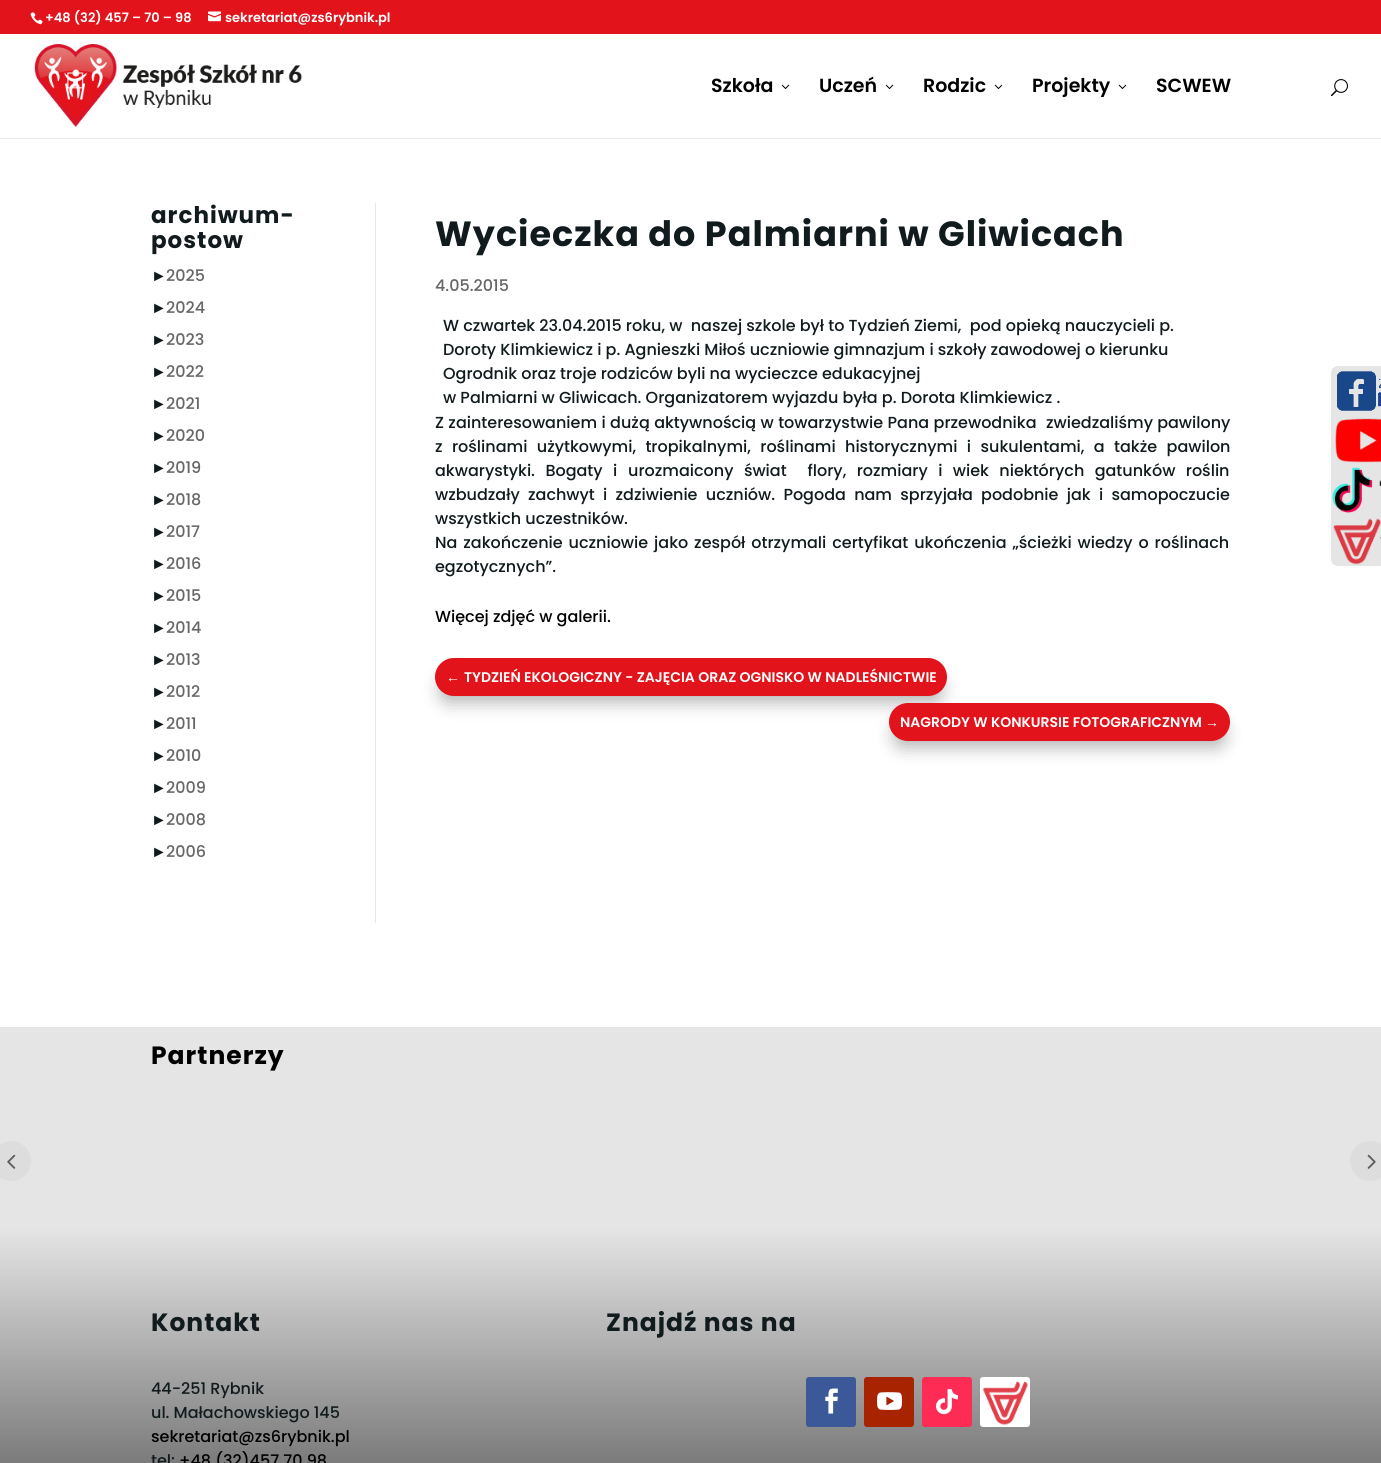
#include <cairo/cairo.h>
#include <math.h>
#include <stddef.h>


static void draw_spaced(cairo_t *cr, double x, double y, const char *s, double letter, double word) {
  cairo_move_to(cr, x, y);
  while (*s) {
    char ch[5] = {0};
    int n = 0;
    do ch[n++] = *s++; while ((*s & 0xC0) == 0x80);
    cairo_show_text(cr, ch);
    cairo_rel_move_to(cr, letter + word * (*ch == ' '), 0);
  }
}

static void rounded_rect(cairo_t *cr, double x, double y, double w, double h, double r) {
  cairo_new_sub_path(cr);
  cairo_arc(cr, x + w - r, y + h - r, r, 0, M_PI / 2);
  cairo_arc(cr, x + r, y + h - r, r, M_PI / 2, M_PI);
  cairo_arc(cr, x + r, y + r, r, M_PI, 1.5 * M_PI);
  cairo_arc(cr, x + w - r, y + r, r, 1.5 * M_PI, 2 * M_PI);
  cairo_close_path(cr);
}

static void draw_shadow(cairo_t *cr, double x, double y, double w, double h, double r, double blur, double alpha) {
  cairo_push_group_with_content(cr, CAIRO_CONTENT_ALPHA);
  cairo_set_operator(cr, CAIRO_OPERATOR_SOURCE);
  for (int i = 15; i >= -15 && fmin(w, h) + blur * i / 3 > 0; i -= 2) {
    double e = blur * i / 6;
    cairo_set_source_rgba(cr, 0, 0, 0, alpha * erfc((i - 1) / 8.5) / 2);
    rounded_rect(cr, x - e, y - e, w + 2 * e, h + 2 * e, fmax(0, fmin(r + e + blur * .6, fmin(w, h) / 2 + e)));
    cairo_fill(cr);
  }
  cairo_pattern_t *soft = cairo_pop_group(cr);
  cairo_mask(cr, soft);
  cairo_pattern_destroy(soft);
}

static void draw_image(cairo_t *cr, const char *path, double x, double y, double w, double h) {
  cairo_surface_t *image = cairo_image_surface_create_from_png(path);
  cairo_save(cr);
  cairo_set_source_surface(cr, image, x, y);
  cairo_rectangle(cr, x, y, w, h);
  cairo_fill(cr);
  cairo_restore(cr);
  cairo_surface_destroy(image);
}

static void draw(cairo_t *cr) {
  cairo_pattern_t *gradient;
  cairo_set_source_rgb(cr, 1, 1, 1);
  cairo_paint(cr);
  cairo_set_source_rgb(cr, 226 / 255.0, 19 / 255.0, 27 / 255.0);
  cairo_rectangle(cr, 0, 0, 1381, 34);
  cairo_fill(cr);
  draw_image(cr, "images/1.png", 30, 12, 13, 13);
  draw_image(cr, "images/2.png", 208, 11, 13, 11);
  cairo_set_source_rgb(cr, 230 / 255.0, 230 / 255.0, 230 / 255.0);
  cairo_rectangle(cr, 0, 138, 1381, 1);
  cairo_fill(cr);
  draw_image(cr, "images/3.png", 34, 41, 268, 87);
  draw_image(cr, "images/4.png", 781, 84, 9, 5);
  draw_image(cr, "images/4.png", 885, 84, 9, 5);
  draw_image(cr, "images/4.png", 994, 84, 9, 5);
  draw_image(cr, "images/4.png", 1118, 84, 9, 5);
  draw_image(cr, "images/5.png", 1331, 79, 17, 18);
  cairo_rectangle(cr, 375, 203, 1, 720);
  cairo_fill(cr);
  cairo_set_source_rgb(cr, 0, 0, 0);
  draw_shadow(cr, 441, 676, 500, 26, 13, 9, 0.3);
  cairo_set_source_rgb(cr, 226 / 255.0, 19 / 255.0, 27 / 255.0);
  rounded_rect(cr, 437.5, 660.5, 507, 33, 16.5);
  cairo_fill_preserve(cr);
  cairo_set_line_width(cr, 5);
  cairo_stroke(cr);
  cairo_set_source_rgb(cr, 0, 0, 0);
  draw_shadow(cr, 895, 721, 329, 26, 13, 9, 0.3);
  cairo_set_source_rgb(cr, 226 / 255.0, 19 / 255.0, 27 / 255.0);
  rounded_rect(cr, 891.5, 705.5, 336, 33, 16.5);
  cairo_fill_preserve(cr);
  cairo_stroke(cr);
  cairo_set_source_rgb(cr, 229 / 255.0, 229 / 255.0, 229 / 255.0);
  cairo_rectangle(cr, 0, 1027, 1381, 201);
  cairo_fill(cr);
  cairo_set_source_rgb(cr, 221 / 255.0, 221 / 255.0, 221 / 255.0);
  cairo_arc(cr, 11, 1161, 20, 0, 2 * M_PI);
  cairo_fill(cr);
  draw_image(cr, "images/6.png", 7, 1154, 9, 15);
  cairo_arc(cr, 1370, 1161, 20, 0, 2 * M_PI);
  cairo_fill(cr);
  draw_image(cr, "images/7.png", 1367, 1154, 9, 15);
  gradient = cairo_pattern_create_linear(691, 1228, 691, 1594);
  cairo_pattern_add_color_stop_rgba(gradient, 0, 229 / 255.0, 229 / 255.0, 229 / 255.0, 1);
  cairo_pattern_add_color_stop_rgba(gradient, 0.99, 66 / 255.0, 66 / 255.0, 66 / 255.0, 1);
  cairo_set_source(cr, gradient);
  cairo_pattern_destroy(gradient);
  cairo_rectangle(cr, 0, 1228, 1381, 235);
  cairo_fill(cr);
  cairo_set_source_rgb(cr, 59 / 255.0, 89 / 255.0, 152 / 255.0);
  rounded_rect(cr, 806, 1377, 50, 50, 3);
  cairo_fill(cr);
  draw_image(cr, "images/8.png", 825, 1388, 13, 26);
  cairo_set_source_rgb(cr, 168 / 255.0, 36 / 255.0, 0);
  rounded_rect(cr, 864, 1377, 50, 50, 3);
  cairo_fill(cr);
  draw_image(cr, "images/9.png", 877, 1392, 25, 18);
  cairo_set_source_rgb(cr, 254 / 255.0, 44 / 255.0, 85 / 255.0);
  rounded_rect(cr, 922, 1377, 50, 50, 3);
  cairo_fill(cr);
  draw_image(cr, "images/10.png", 936, 1389, 22, 26);
  cairo_set_source_rgb(cr, 1, 1, 1);
  rounded_rect(cr, 980, 1377, 50, 50, 3);
  cairo_fill(cr);
  draw_image(cr, "images/11.png", 982, 1381, 46, 44);
  cairo_set_source_rgb(cr, 229 / 255.0, 229 / 255.0, 229 / 255.0);
  rounded_rect(cr, 1331, 366, 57, 200, 7);
  cairo_fill(cr);
  draw_image(cr, "images/12.png", 1337, 371, 44, 40);
  draw_image(cr, "images/13.png", 1335, 418, 46, 45);
  draw_image(cr, "images/14.png", 1332, 467, 49, 46);
  draw_image(cr, "images/15.png", 1333, 518, 48, 47);
  cairo_select_font_face(cr, "Poppins SemiBold", CAIRO_FONT_SLANT_NORMAL, CAIRO_FONT_WEIGHT_NORMAL);
  cairo_set_font_size(cr, 13);
  cairo_set_source_rgb(cr, 1, 1, 1);
  cairo_move_to(cr, 45, 22);
  cairo_show_text(cr, "+48 (32) 457 – 70 – 98");
  cairo_move_to(cr, 225, 22);
  cairo_show_text(cr, "sekretariat@zs6rybnik.pl");
  cairo_set_font_size(cr, 19);
  cairo_set_source_rgb(cr, 0, 0, 0);
  cairo_move_to(cr, 711, 92);
  cairo_show_text(cr, "Szkoła");
  cairo_move_to(cr, 819, 92);
  cairo_show_text(cr, "Uczeń");
  cairo_move_to(cr, 923, 92);
  cairo_show_text(cr, "Rodzic");
  cairo_move_to(cr, 1032, 92);
  cairo_show_text(cr, "Projekty");
  cairo_move_to(cr, 1156, 92);
  cairo_show_text(cr, "SCWEW");
  cairo_select_font_face(cr, "Poppins", CAIRO_FONT_SLANT_NORMAL, CAIRO_FONT_WEIGHT_BOLD);
  cairo_set_font_size(cr, 23);
  cairo_set_source_rgb(cr, 17 / 255.0, 27 / 255.0, 30 / 255.0);
  draw_spaced(cr, 151, 223, "archiwum-", 1, 0);
  draw_spaced(cr, 151, 248, "postow", 1, 0);
  cairo_select_font_face(cr, "Liberation Sans", CAIRO_FONT_SLANT_NORMAL, CAIRO_FONT_WEIGHT_NORMAL);
  cairo_set_font_size(cr, 16);
  cairo_move_to(cr, 151, 281);
  cairo_show_text(cr, "►");
  cairo_select_font_face(cr, "Poppins Medium", CAIRO_FONT_SLANT_NORMAL, CAIRO_FONT_WEIGHT_NORMAL);
  cairo_set_source_rgb(cr, 102 / 255.0, 102 / 255.0, 102 / 255.0);
  cairo_move_to(cr, 166, 281);
  cairo_show_text(cr, "2025");
  cairo_select_font_face(cr, "Liberation Sans", CAIRO_FONT_SLANT_NORMAL, CAIRO_FONT_WEIGHT_NORMAL);
  cairo_set_source_rgb(cr, 17 / 255.0, 27 / 255.0, 30 / 255.0);
  cairo_move_to(cr, 151, 313);
  cairo_show_text(cr, "►");
  cairo_select_font_face(cr, "Poppins Medium", CAIRO_FONT_SLANT_NORMAL, CAIRO_FONT_WEIGHT_NORMAL);
  cairo_set_source_rgb(cr, 102 / 255.0, 102 / 255.0, 102 / 255.0);
  cairo_move_to(cr, 166, 313);
  cairo_show_text(cr, "2024");
  cairo_select_font_face(cr, "Liberation Sans", CAIRO_FONT_SLANT_NORMAL, CAIRO_FONT_WEIGHT_NORMAL);
  cairo_set_source_rgb(cr, 17 / 255.0, 27 / 255.0, 30 / 255.0);
  cairo_move_to(cr, 151, 345);
  cairo_show_text(cr, "►");
  cairo_select_font_face(cr, "Poppins Medium", CAIRO_FONT_SLANT_NORMAL, CAIRO_FONT_WEIGHT_NORMAL);
  cairo_set_source_rgb(cr, 102 / 255.0, 102 / 255.0, 102 / 255.0);
  cairo_move_to(cr, 166, 345);
  cairo_show_text(cr, "2023");
  cairo_select_font_face(cr, "Liberation Sans", CAIRO_FONT_SLANT_NORMAL, CAIRO_FONT_WEIGHT_NORMAL);
  cairo_set_source_rgb(cr, 17 / 255.0, 27 / 255.0, 30 / 255.0);
  cairo_move_to(cr, 151, 377);
  cairo_show_text(cr, "►");
  cairo_select_font_face(cr, "Poppins Medium", CAIRO_FONT_SLANT_NORMAL, CAIRO_FONT_WEIGHT_NORMAL);
  cairo_set_source_rgb(cr, 102 / 255.0, 102 / 255.0, 102 / 255.0);
  cairo_move_to(cr, 166, 377);
  cairo_show_text(cr, "2022");
  cairo_select_font_face(cr, "Liberation Sans", CAIRO_FONT_SLANT_NORMAL, CAIRO_FONT_WEIGHT_NORMAL);
  cairo_set_source_rgb(cr, 17 / 255.0, 27 / 255.0, 30 / 255.0);
  cairo_move_to(cr, 151, 409);
  cairo_show_text(cr, "►");
  cairo_select_font_face(cr, "Poppins Medium", CAIRO_FONT_SLANT_NORMAL, CAIRO_FONT_WEIGHT_NORMAL);
  cairo_set_source_rgb(cr, 102 / 255.0, 102 / 255.0, 102 / 255.0);
  cairo_move_to(cr, 166, 409);
  cairo_show_text(cr, "2021");
  cairo_select_font_face(cr, "Liberation Sans", CAIRO_FONT_SLANT_NORMAL, CAIRO_FONT_WEIGHT_NORMAL);
  cairo_set_source_rgb(cr, 17 / 255.0, 27 / 255.0, 30 / 255.0);
  cairo_move_to(cr, 151, 441);
  cairo_show_text(cr, "►");
  cairo_select_font_face(cr, "Poppins Medium", CAIRO_FONT_SLANT_NORMAL, CAIRO_FONT_WEIGHT_NORMAL);
  cairo_set_source_rgb(cr, 102 / 255.0, 102 / 255.0, 102 / 255.0);
  cairo_move_to(cr, 166, 441);
  cairo_show_text(cr, "2020");
  cairo_select_font_face(cr, "Liberation Sans", CAIRO_FONT_SLANT_NORMAL, CAIRO_FONT_WEIGHT_NORMAL);
  cairo_set_source_rgb(cr, 17 / 255.0, 27 / 255.0, 30 / 255.0);
  cairo_move_to(cr, 151, 473);
  cairo_show_text(cr, "►");
  cairo_select_font_face(cr, "Poppins Medium", CAIRO_FONT_SLANT_NORMAL, CAIRO_FONT_WEIGHT_NORMAL);
  cairo_set_source_rgb(cr, 102 / 255.0, 102 / 255.0, 102 / 255.0);
  cairo_move_to(cr, 166, 473);
  cairo_show_text(cr, "2019");
  cairo_select_font_face(cr, "Liberation Sans", CAIRO_FONT_SLANT_NORMAL, CAIRO_FONT_WEIGHT_NORMAL);
  cairo_set_source_rgb(cr, 17 / 255.0, 27 / 255.0, 30 / 255.0);
  cairo_move_to(cr, 151, 505);
  cairo_show_text(cr, "►");
  cairo_select_font_face(cr, "Poppins Medium", CAIRO_FONT_SLANT_NORMAL, CAIRO_FONT_WEIGHT_NORMAL);
  cairo_set_source_rgb(cr, 102 / 255.0, 102 / 255.0, 102 / 255.0);
  cairo_move_to(cr, 166, 505);
  cairo_show_text(cr, "2018");
  cairo_select_font_face(cr, "Liberation Sans", CAIRO_FONT_SLANT_NORMAL, CAIRO_FONT_WEIGHT_NORMAL);
  cairo_set_source_rgb(cr, 17 / 255.0, 27 / 255.0, 30 / 255.0);
  cairo_move_to(cr, 151, 537);
  cairo_show_text(cr, "►");
  cairo_select_font_face(cr, "Poppins Medium", CAIRO_FONT_SLANT_NORMAL, CAIRO_FONT_WEIGHT_NORMAL);
  cairo_set_source_rgb(cr, 102 / 255.0, 102 / 255.0, 102 / 255.0);
  cairo_move_to(cr, 166, 537);
  cairo_show_text(cr, "2017");
  cairo_select_font_face(cr, "Liberation Sans", CAIRO_FONT_SLANT_NORMAL, CAIRO_FONT_WEIGHT_NORMAL);
  cairo_set_source_rgb(cr, 17 / 255.0, 27 / 255.0, 30 / 255.0);
  cairo_move_to(cr, 151, 569);
  cairo_show_text(cr, "►");
  cairo_select_font_face(cr, "Poppins Medium", CAIRO_FONT_SLANT_NORMAL, CAIRO_FONT_WEIGHT_NORMAL);
  cairo_set_source_rgb(cr, 102 / 255.0, 102 / 255.0, 102 / 255.0);
  cairo_move_to(cr, 166, 569);
  cairo_show_text(cr, "2016");
  cairo_select_font_face(cr, "Liberation Sans", CAIRO_FONT_SLANT_NORMAL, CAIRO_FONT_WEIGHT_NORMAL);
  cairo_set_source_rgb(cr, 17 / 255.0, 27 / 255.0, 30 / 255.0);
  cairo_move_to(cr, 151, 601);
  cairo_show_text(cr, "►");
  cairo_select_font_face(cr, "Poppins Medium", CAIRO_FONT_SLANT_NORMAL, CAIRO_FONT_WEIGHT_NORMAL);
  cairo_set_source_rgb(cr, 102 / 255.0, 102 / 255.0, 102 / 255.0);
  cairo_move_to(cr, 166, 601);
  cairo_show_text(cr, "2015");
  cairo_select_font_face(cr, "Liberation Sans", CAIRO_FONT_SLANT_NORMAL, CAIRO_FONT_WEIGHT_NORMAL);
  cairo_set_source_rgb(cr, 17 / 255.0, 27 / 255.0, 30 / 255.0);
  cairo_move_to(cr, 151, 633);
  cairo_show_text(cr, "►");
  cairo_select_font_face(cr, "Poppins Medium", CAIRO_FONT_SLANT_NORMAL, CAIRO_FONT_WEIGHT_NORMAL);
  cairo_set_source_rgb(cr, 102 / 255.0, 102 / 255.0, 102 / 255.0);
  cairo_move_to(cr, 166, 633);
  cairo_show_text(cr, "2014");
  cairo_select_font_face(cr, "Liberation Sans", CAIRO_FONT_SLANT_NORMAL, CAIRO_FONT_WEIGHT_NORMAL);
  cairo_set_source_rgb(cr, 17 / 255.0, 27 / 255.0, 30 / 255.0);
  cairo_move_to(cr, 151, 665);
  cairo_show_text(cr, "►");
  cairo_select_font_face(cr, "Poppins Medium", CAIRO_FONT_SLANT_NORMAL, CAIRO_FONT_WEIGHT_NORMAL);
  cairo_set_source_rgb(cr, 102 / 255.0, 102 / 255.0, 102 / 255.0);
  cairo_move_to(cr, 166, 665);
  cairo_show_text(cr, "2013");
  cairo_select_font_face(cr, "Liberation Sans", CAIRO_FONT_SLANT_NORMAL, CAIRO_FONT_WEIGHT_NORMAL);
  cairo_set_source_rgb(cr, 17 / 255.0, 27 / 255.0, 30 / 255.0);
  cairo_move_to(cr, 151, 697);
  cairo_show_text(cr, "►");
  cairo_select_font_face(cr, "Poppins Medium", CAIRO_FONT_SLANT_NORMAL, CAIRO_FONT_WEIGHT_NORMAL);
  cairo_set_source_rgb(cr, 102 / 255.0, 102 / 255.0, 102 / 255.0);
  cairo_move_to(cr, 166, 697);
  cairo_show_text(cr, "2012");
  cairo_select_font_face(cr, "Liberation Sans", CAIRO_FONT_SLANT_NORMAL, CAIRO_FONT_WEIGHT_NORMAL);
  cairo_set_source_rgb(cr, 17 / 255.0, 27 / 255.0, 30 / 255.0);
  cairo_move_to(cr, 151, 729);
  cairo_show_text(cr, "►");
  cairo_select_font_face(cr, "Poppins Medium", CAIRO_FONT_SLANT_NORMAL, CAIRO_FONT_WEIGHT_NORMAL);
  cairo_set_source_rgb(cr, 102 / 255.0, 102 / 255.0, 102 / 255.0);
  cairo_move_to(cr, 166, 729);
  cairo_show_text(cr, "2011");
  cairo_select_font_face(cr, "Liberation Sans", CAIRO_FONT_SLANT_NORMAL, CAIRO_FONT_WEIGHT_NORMAL);
  cairo_set_source_rgb(cr, 17 / 255.0, 27 / 255.0, 30 / 255.0);
  cairo_move_to(cr, 151, 761);
  cairo_show_text(cr, "►");
  cairo_select_font_face(cr, "Poppins Medium", CAIRO_FONT_SLANT_NORMAL, CAIRO_FONT_WEIGHT_NORMAL);
  cairo_set_source_rgb(cr, 102 / 255.0, 102 / 255.0, 102 / 255.0);
  cairo_move_to(cr, 166, 761);
  cairo_show_text(cr, "2010");
  cairo_select_font_face(cr, "Liberation Sans", CAIRO_FONT_SLANT_NORMAL, CAIRO_FONT_WEIGHT_NORMAL);
  cairo_set_source_rgb(cr, 17 / 255.0, 27 / 255.0, 30 / 255.0);
  cairo_move_to(cr, 151, 793);
  cairo_show_text(cr, "►");
  cairo_select_font_face(cr, "Poppins Medium", CAIRO_FONT_SLANT_NORMAL, CAIRO_FONT_WEIGHT_NORMAL);
  cairo_set_source_rgb(cr, 102 / 255.0, 102 / 255.0, 102 / 255.0);
  cairo_move_to(cr, 166, 793);
  cairo_show_text(cr, "2009");
  cairo_select_font_face(cr, "Liberation Sans", CAIRO_FONT_SLANT_NORMAL, CAIRO_FONT_WEIGHT_NORMAL);
  cairo_set_source_rgb(cr, 17 / 255.0, 27 / 255.0, 30 / 255.0);
  cairo_move_to(cr, 151, 825);
  cairo_show_text(cr, "►");
  cairo_select_font_face(cr, "Poppins Medium", CAIRO_FONT_SLANT_NORMAL, CAIRO_FONT_WEIGHT_NORMAL);
  cairo_set_source_rgb(cr, 102 / 255.0, 102 / 255.0, 102 / 255.0);
  cairo_move_to(cr, 166, 825);
  cairo_show_text(cr, "2008");
  cairo_select_font_face(cr, "Liberation Sans", CAIRO_FONT_SLANT_NORMAL, CAIRO_FONT_WEIGHT_NORMAL);
  cairo_set_source_rgb(cr, 17 / 255.0, 27 / 255.0, 30 / 255.0);
  cairo_move_to(cr, 151, 857);
  cairo_show_text(cr, "►");
  cairo_select_font_face(cr, "Poppins Medium", CAIRO_FONT_SLANT_NORMAL, CAIRO_FONT_WEIGHT_NORMAL);
  cairo_set_source_rgb(cr, 102 / 255.0, 102 / 255.0, 102 / 255.0);
  cairo_move_to(cr, 166, 857);
  cairo_show_text(cr, "2006");
  cairo_select_font_face(cr, "Poppins", CAIRO_FONT_SLANT_NORMAL, CAIRO_FONT_WEIGHT_BOLD);
  cairo_set_font_size(cr, 35);
  cairo_set_source_rgb(cr, 17 / 255.0, 27 / 255.0, 30 / 255.0);
  draw_spaced(cr, 435, 246, "Wycieczka do Palmiarni w Gliwicach", 1, 0);
  cairo_select_font_face(cr, "Poppins Medium", CAIRO_FONT_SLANT_NORMAL, CAIRO_FONT_WEIGHT_NORMAL);
  cairo_set_font_size(cr, 16);
  cairo_set_source_rgb(cr, 102 / 255.0, 102 / 255.0, 102 / 255.0);
  cairo_move_to(cr, 435, 291);
  cairo_show_text(cr, "4.05.2015");
  cairo_set_source_rgb(cr, 17 / 255.0, 27 / 255.0, 30 / 255.0);
  cairo_move_to(cr, 443, 331);
  cairo_show_text(cr, "W czwartek 23.04.2015 roku, w  naszej szkole był to Tydzień Ziemi,  pod opieką nauczycieli p.");
  cairo_move_to(cr, 443, 355);
  cairo_show_text(cr, "Doroty Klimkiewicz i p. Agnieszki Miłoś uczniowie gimnazjum i szkoły zawodowej o kierunku");
  cairo_move_to(cr, 443, 379);
  cairo_show_text(cr, "Ogrodnik oraz troje rodziców byli na wycieczce edukacyjnej");
  cairo_move_to(cr, 443, 403);
  cairo_show_text(cr, "w Palmiarni w Gliwicach. Organizatorem wyjazdu była p. Dorota Klimkiewicz .");
  draw_spaced(cr, 435, 428, "Z zainteresowaniem i dużą aktywnością w towarzystwie Pana przewodnika", 0, 0.25);
  cairo_move_to(cr, 1046, 428);
  cairo_show_text(cr, "zwiedzaliśmy pawilony");
  draw_spaced(cr, 435, 452, "z roślinami użytkowymi, tropikalnymi, roślinami", 0, 5.25);
  draw_spaced(cr, 845, 452, "historycznymi i sukulentami, a także pawilon", 0, 5.25);
  draw_spaced(cr, 435, 476, "akwarystyki. Bogaty i", 0, 6.25);
  draw_spaced(cr, 628, 476, "urozmaicony świat  flory, rozmiary i wiek niektórych gatunków roślin", 0, 6.25);
  draw_spaced(cr, 435, 500, "wzbudzały zachwyt i zdziwienie uczniów. Pogoda nam sprzyjała podobnie jak i samopoczucie", 0, 4.1);
  cairo_move_to(cr, 435, 524);
  cairo_show_text(cr, "wszystkich uczestników.");
  draw_spaced(cr, 435, 548, "Na zakończenie uczniowie jako zespół otrzymali certyfikat ukończenia „ścieżki wiedzy o roślinach", 0, 1.75);
  cairo_move_to(cr, 435, 572);
  cairo_show_text(cr, "egzotycznych”.");
  cairo_set_source_rgb(cr, 0, 0, 0);
  cairo_move_to(cr, 435, 622);
  cairo_show_text(cr, "Więcej zdjęć w galerii.");
  cairo_select_font_face(cr, "Liberation Sans", CAIRO_FONT_SLANT_NORMAL, CAIRO_FONT_WEIGHT_BOLD);
  cairo_set_font_size(cr, 14);
  cairo_set_source_rgb(cr, 1, 1, 1);
  cairo_move_to(cr, 446, 682);
  cairo_show_text(cr, "←");
  cairo_select_font_face(cr, "Poppins SemiBold", CAIRO_FONT_SLANT_NORMAL, CAIRO_FONT_WEIGHT_NORMAL);
  cairo_move_to(cr, 464, 682);
  cairo_show_text(cr, "TYDZIEŃ EKOLOGICZNY - ZAJĘCIA ORAZ OGNISKO W NADLEŚNICTWIE");
  cairo_move_to(cr, 900, 727);
  cairo_show_text(cr, "NAGRODY W KONKURSIE FOTOGRAFICZNYM");
  cairo_select_font_face(cr, "Liberation Sans", CAIRO_FONT_SLANT_NORMAL, CAIRO_FONT_WEIGHT_BOLD);
  cairo_move_to(cr, 1205, 727);
  cairo_show_text(cr, "→");
  cairo_select_font_face(cr, "Poppins", CAIRO_FONT_SLANT_NORMAL, CAIRO_FONT_WEIGHT_BOLD);
  cairo_set_font_size(cr, 25);
  cairo_set_source_rgb(cr, 0, 0, 0);
  draw_spaced(cr, 151, 1064, "Partnerzy", 1, 0);
  cairo_set_source_rgb(cr, 17 / 255.0, 27 / 255.0, 30 / 255.0);
  draw_spaced(cr, 151, 1331, "Kontakt", 1, 0);
  cairo_select_font_face(cr, "Poppins Medium", CAIRO_FONT_SLANT_NORMAL, CAIRO_FONT_WEIGHT_NORMAL);
  cairo_set_font_size(cr, 16);
  cairo_move_to(cr, 151, 1394);
  cairo_show_text(cr, "44-251 Rybnik");
  cairo_move_to(cr, 151, 1418);
  cairo_show_text(cr, "ul. Małachowskiego 145");
  cairo_set_source_rgb(cr, 0, 0, 0);
  cairo_move_to(cr, 151, 1442);
  cairo_show_text(cr, "sekretariat@zs6rybnik.pl");
  cairo_set_source_rgb(cr, 17 / 255.0, 27 / 255.0, 30 / 255.0);
  cairo_move_to(cr, 151, 1466);
  cairo_show_text(cr, "tel:");
  cairo_set_source_rgb(cr, 0, 0, 0);
  cairo_move_to(cr, 179, 1466);
  cairo_show_text(cr, "+48 (32)457 70 98");
  cairo_select_font_face(cr, "Poppins", CAIRO_FONT_SLANT_NORMAL, CAIRO_FONT_WEIGHT_BOLD);
  cairo_set_font_size(cr, 25);
  cairo_set_source_rgb(cr, 17 / 255.0, 27 / 255.0, 30 / 255.0);
  draw_spaced(cr, 606, 1331, "Znajdź nas na", 1, 0);
}

int main(void) {
  cairo_surface_t *surface = cairo_image_surface_create(CAIRO_FORMAT_RGB24, 1381, 1463);
  cairo_t *cr = cairo_create(surface);
  cairo_font_options_t *options = cairo_font_options_create();
  cairo_font_options_set_hint_metrics(options, CAIRO_HINT_METRICS_OFF);
  cairo_font_options_set_hint_style(options, CAIRO_HINT_STYLE_NONE);
  cairo_set_font_options(cr, options);
  cairo_set_miter_limit(cr, 4);
  draw(cr);
  cairo_surface_write_to_png(surface, "out.png");
  cairo_font_options_destroy(options);
  cairo_destroy(cr);
  cairo_surface_destroy(surface);
  return 0;
}
